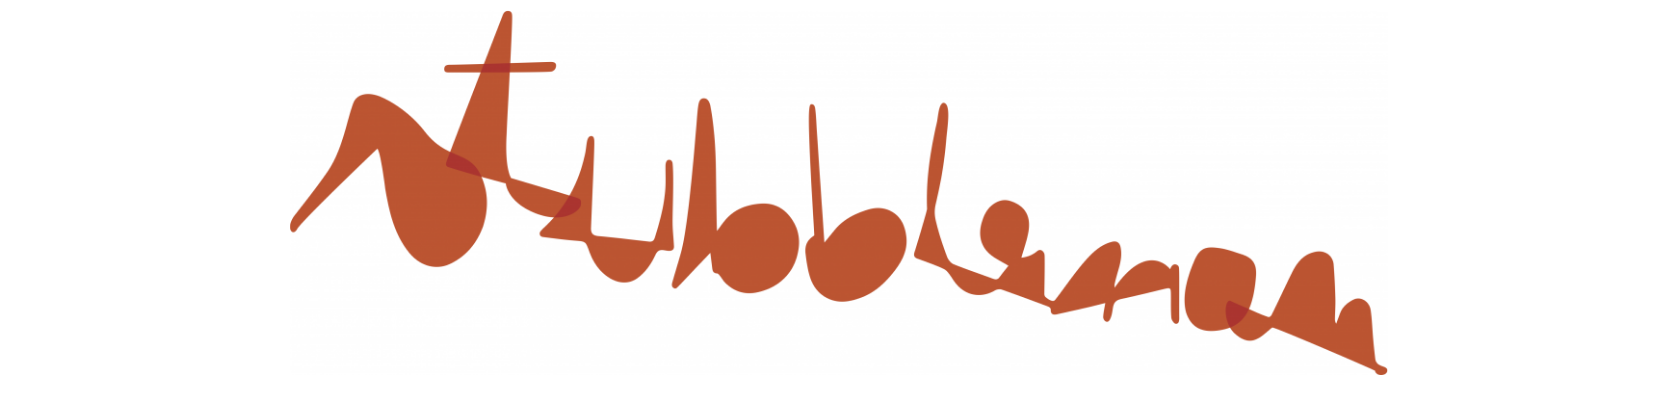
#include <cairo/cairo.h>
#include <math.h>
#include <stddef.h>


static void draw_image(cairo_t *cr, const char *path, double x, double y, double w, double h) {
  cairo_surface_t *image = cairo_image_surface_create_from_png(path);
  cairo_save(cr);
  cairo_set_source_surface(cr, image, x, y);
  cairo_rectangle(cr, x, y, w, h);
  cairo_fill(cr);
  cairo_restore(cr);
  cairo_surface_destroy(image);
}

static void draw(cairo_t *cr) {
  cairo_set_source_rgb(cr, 1, 1, 1);
  cairo_paint(cr);
  draw_image(cr, "images/1.png", 290, 10, 1098, 365);
}

int main(void) {
  cairo_surface_t *surface = cairo_image_surface_create(CAIRO_FORMAT_RGB24, 1678, 419);
  cairo_t *cr = cairo_create(surface);
  cairo_font_options_t *options = cairo_font_options_create();
  cairo_font_options_set_hint_metrics(options, CAIRO_HINT_METRICS_OFF);
  cairo_font_options_set_hint_style(options, CAIRO_HINT_STYLE_NONE);
  cairo_set_font_options(cr, options);
  cairo_set_miter_limit(cr, 4);
  draw(cr);
  cairo_surface_write_to_png(surface, "out.png");
  cairo_font_options_destroy(options);
  cairo_destroy(cr);
  cairo_surface_destroy(surface);
  return 0;
}
